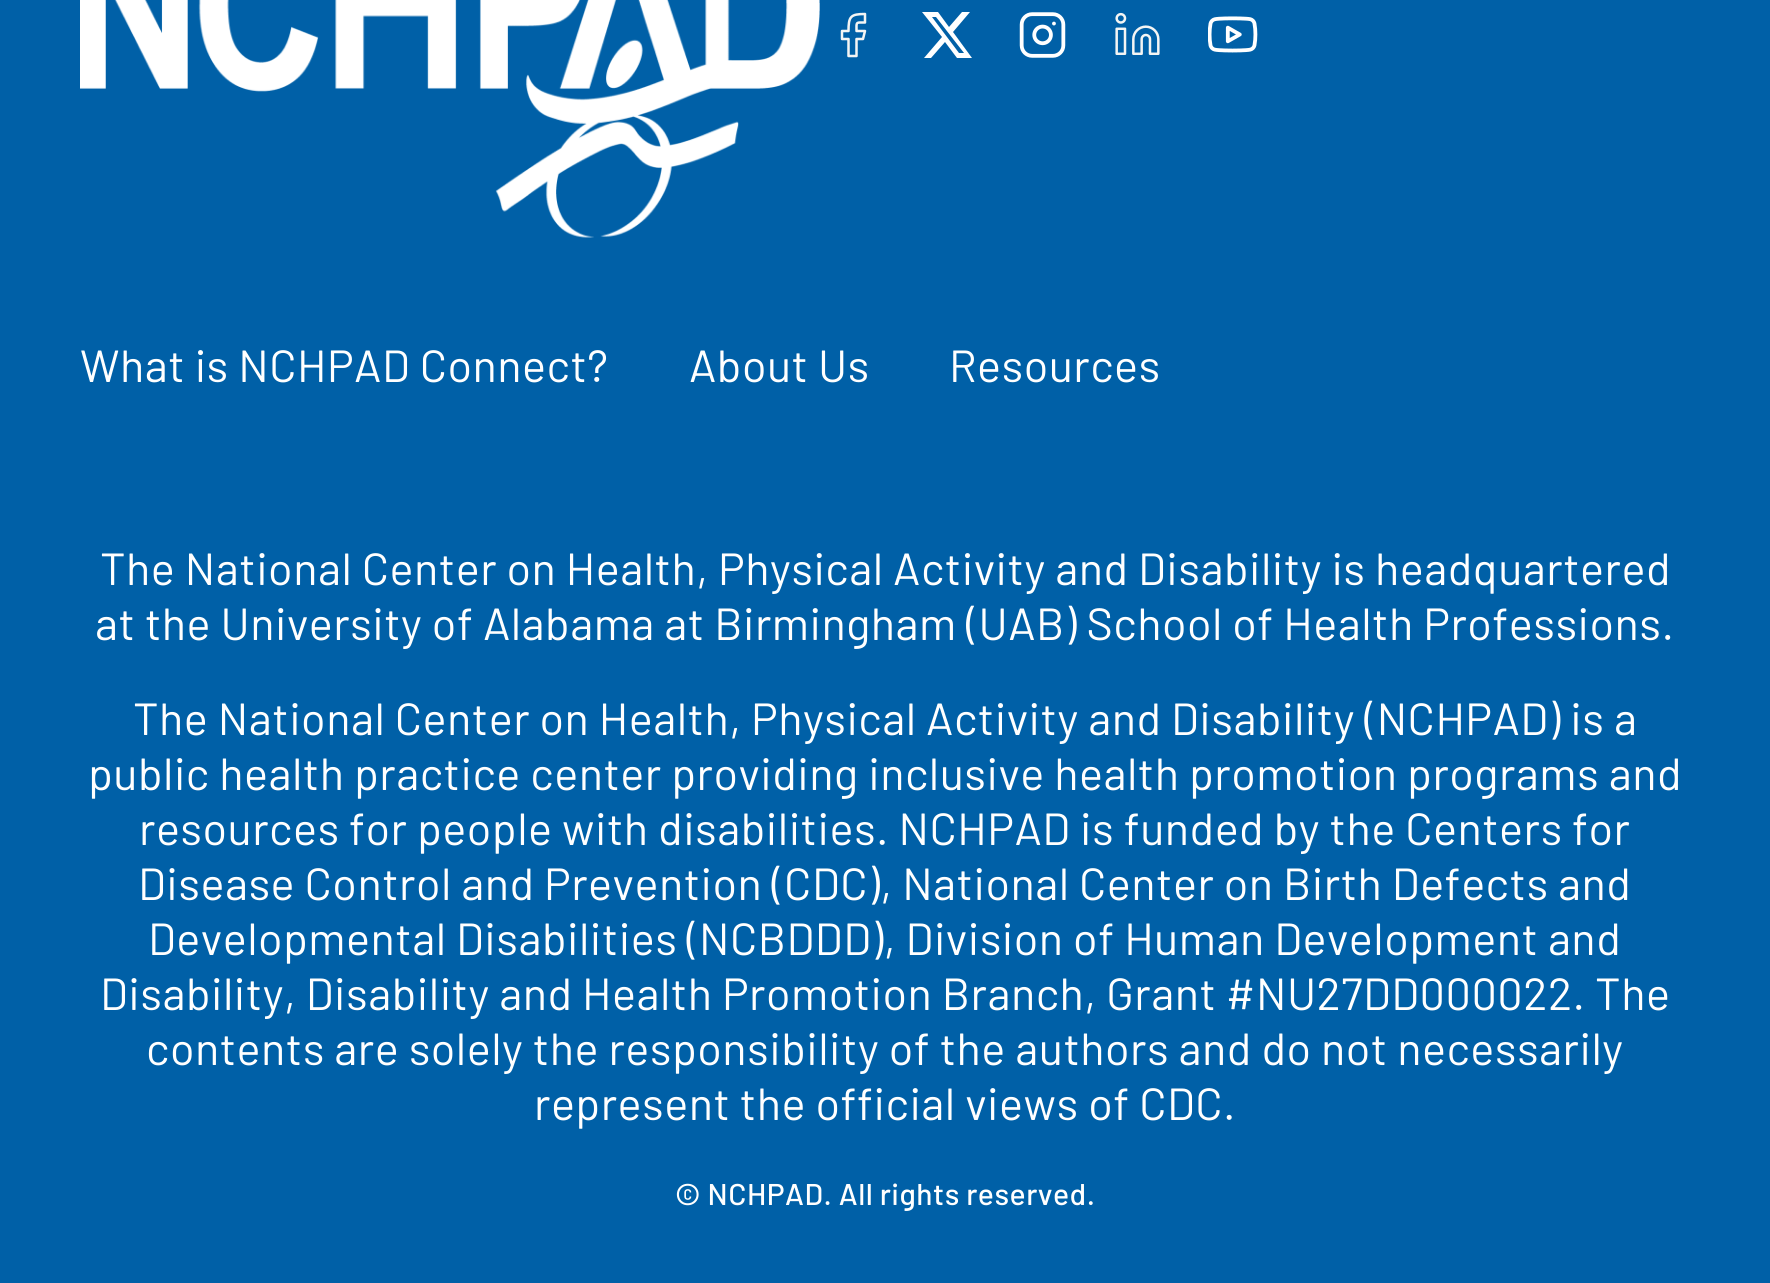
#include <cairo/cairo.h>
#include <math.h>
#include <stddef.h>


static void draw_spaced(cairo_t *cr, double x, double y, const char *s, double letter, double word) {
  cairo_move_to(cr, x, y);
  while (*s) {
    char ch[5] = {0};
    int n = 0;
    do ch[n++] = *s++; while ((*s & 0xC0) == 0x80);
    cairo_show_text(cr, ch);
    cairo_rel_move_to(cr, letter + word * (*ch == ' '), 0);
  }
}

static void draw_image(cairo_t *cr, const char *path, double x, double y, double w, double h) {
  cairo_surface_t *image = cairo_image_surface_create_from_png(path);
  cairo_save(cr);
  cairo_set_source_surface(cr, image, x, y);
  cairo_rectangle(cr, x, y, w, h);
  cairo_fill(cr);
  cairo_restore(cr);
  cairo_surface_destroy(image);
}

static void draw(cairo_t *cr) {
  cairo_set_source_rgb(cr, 0, 96 / 255.0, 167 / 255.0);
  cairo_paint(cr);
  draw_image(cr, "images/1.png", 80, 0, 740, 238);
  cairo_new_path(cr);
  cairo_move_to(cr, 865, 14);
  cairo_curve_to(cr, 850.5, 14, 848.5, 16.5, 848.5, 31);
  cairo_line_to(cr, 842, 31);
  cairo_line_to(cr, 842, 39);
  cairo_line_to(cr, 848.5, 39);
  cairo_line_to(cr, 848.5, 56);
  cairo_line_to(cr, 856.5, 56);
  cairo_line_to(cr, 856.5, 39);
  cairo_line_to(cr, 863, 39);
  cairo_line_to(cr, 865, 31);
  cairo_line_to(cr, 856.5, 31);
  cairo_curve_to(cr, 856.5, 21.5, 855.5, 22.5, 865, 22.5);
  cairo_close_path(cr);
  cairo_set_source_rgb(cr, 244 / 255.0, 245 / 255.0, 244 / 255.0);
  cairo_set_line_width(cr, 2.5);
  cairo_set_line_cap(cr, CAIRO_LINE_CAP_ROUND);
  cairo_set_line_join(cr, CAIRO_LINE_JOIN_ROUND);
  cairo_stroke(cr);
  cairo_set_source_rgb(cr, 1, 1, 1);
  cairo_new_path(cr);
  cairo_move_to(cr, 962, 12);
  cairo_line_to(cr, 970, 12);
  cairo_line_to(cr, 953, 32);
  cairo_line_to(cr, 972, 58);
  cairo_line_to(cr, 957, 58);
  cairo_line_to(cr, 945, 42);
  cairo_line_to(cr, 931, 58);
  cairo_line_to(cr, 924, 58);
  cairo_line_to(cr, 942, 37);
  cairo_line_to(cr, 922, 12);
  cairo_line_to(cr, 938, 12);
  cairo_line_to(cr, 949, 27);
  cairo_close_path(cr);
  cairo_move_to(cr, 959, 53);
  cairo_line_to(cr, 964, 53);
  cairo_line_to(cr, 936, 17);
  cairo_line_to(cr, 932, 17);
  cairo_close_path(cr);
  cairo_fill(cr);
  draw_image(cr, "images/2.png", 1019, 12, 47, 46);
  draw_image(cr, "images/3.png", 1115, 12, 45, 43);
  draw_image(cr, "images/4.png", 1208, 16, 50, 37);
  cairo_select_font_face(cr, "Barlow", CAIRO_FONT_SLANT_NORMAL, CAIRO_FONT_WEIGHT_NORMAL);
  cairo_set_font_size(cr, 45);
  draw_spaced(cr, 80, 382, "What is NCHPAD Connect?", 0.5, 0);
  draw_spaced(cr, 689, 382, "About Us", 0.5, 0);
  draw_spaced(cr, 949, 382, "Resources", 0.5, 0);
  draw_spaced(cr, 100, 585, "The National Center on Health, Physical Activity and Disability is headquartered", 0.5, 0);
  draw_spaced(cr, 95, 640, "at the University of Alabama at Birmingham (UAB) School of Health Professions.", 0.5, 0);
  draw_spaced(cr, 133, 735, "The National Center on Health, Physical Activity and Disability (NCHPAD) is a", 0.5, 0);
  draw_spaced(cr, 88, 790, "public health practice center providing inclusive health promotion programs and", 0.5, 0);
  draw_spaced(cr, 139, 845, "resources for people with disabilities. NCHPAD is funded by the Centers for", 0.5, 0);
  draw_spaced(cr, 138, 900, "Disease Control and Prevention (CDC), National Center on Birth Defects and", 0.5, 0);
  draw_spaced(cr, 148, 955, "Developmental Disabilities (NCBDDD), Division of Human Development and", 0.5, 0);
  draw_spaced(cr, 100, 1010, "Disability, Disability and Health Promotion Branch, Grant #NU27DD000022. The", 0.5, 0);
  draw_spaced(cr, 146, 1065, "contents are solely the responsibility of the authors and do not necessarily", 0.5, 0);
  draw_spaced(cr, 534, 1120, "represent the official views of CDC.", 0.5, 0);
  cairo_select_font_face(cr, "Barlow Medium", CAIRO_FONT_SLANT_NORMAL, CAIRO_FONT_WEIGHT_NORMAL);
  cairo_set_font_size(cr, 30);
  draw_spaced(cr, 675, 1205, "© NCHPAD. All rights reserved.", 0.5, 0);
}

int main(void) {
  cairo_surface_t *surface = cairo_image_surface_create(CAIRO_FORMAT_RGB24, 1770, 1283);
  cairo_t *cr = cairo_create(surface);
  cairo_font_options_t *options = cairo_font_options_create();
  cairo_font_options_set_hint_metrics(options, CAIRO_HINT_METRICS_OFF);
  cairo_font_options_set_hint_style(options, CAIRO_HINT_STYLE_NONE);
  cairo_set_font_options(cr, options);
  cairo_set_miter_limit(cr, 4);
  draw(cr);
  cairo_surface_write_to_png(surface, "out.png");
  cairo_font_options_destroy(options);
  cairo_destroy(cr);
  cairo_surface_destroy(surface);
  return 0;
}
